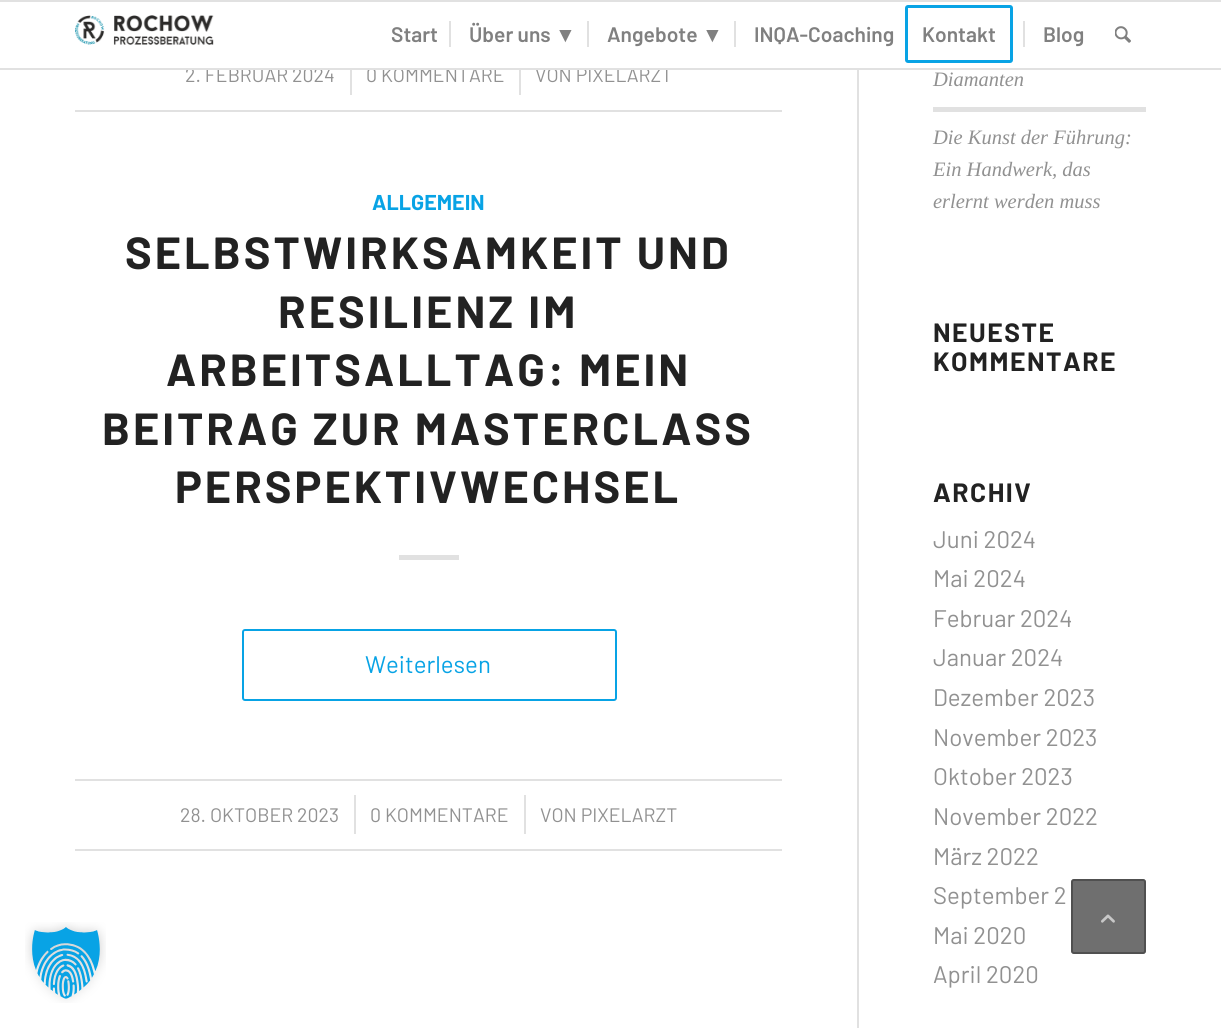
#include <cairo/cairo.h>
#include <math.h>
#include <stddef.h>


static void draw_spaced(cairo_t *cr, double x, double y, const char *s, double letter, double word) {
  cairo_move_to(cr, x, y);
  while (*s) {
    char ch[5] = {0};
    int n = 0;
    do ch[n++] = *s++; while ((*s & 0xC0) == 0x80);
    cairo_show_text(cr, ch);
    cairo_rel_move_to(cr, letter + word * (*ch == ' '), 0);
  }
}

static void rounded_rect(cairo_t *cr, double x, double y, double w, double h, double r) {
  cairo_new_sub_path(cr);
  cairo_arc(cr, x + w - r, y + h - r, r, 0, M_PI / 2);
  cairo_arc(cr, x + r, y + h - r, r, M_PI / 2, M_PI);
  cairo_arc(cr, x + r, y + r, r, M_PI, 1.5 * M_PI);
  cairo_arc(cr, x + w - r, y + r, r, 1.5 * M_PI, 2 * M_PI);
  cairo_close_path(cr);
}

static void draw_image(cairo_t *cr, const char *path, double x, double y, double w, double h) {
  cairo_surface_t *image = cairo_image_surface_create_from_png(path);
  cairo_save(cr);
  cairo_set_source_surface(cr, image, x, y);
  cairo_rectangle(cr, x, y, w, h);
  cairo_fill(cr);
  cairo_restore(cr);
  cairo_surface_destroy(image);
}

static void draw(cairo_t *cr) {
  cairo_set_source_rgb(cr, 1, 1, 1);
  cairo_paint(cr);
  cairo_set_source_rgb(cr, 225 / 255.0, 225 / 255.0, 225 / 255.0);
  cairo_rectangle(cr, 0, 0, 1221, 2);
  cairo_fill(cr);
  draw_image(cr, "images/1.png", 75, 15, 139, 30);
  cairo_rectangle(cr, 449, 21, 2, 26);
  cairo_fill(cr);
  cairo_rectangle(cr, 587, 21, 2, 26);
  cairo_fill(cr);
  cairo_rectangle(cr, 734, 21, 2, 26);
  cairo_fill(cr);
  rounded_rect(cr, 906.5, 6.5, 105, 55, 1.5);
  cairo_set_source_rgb(cr, 8 / 255.0, 163 / 255.0, 229 / 255.0);
  cairo_set_line_width(cr, 3);
  cairo_stroke(cr);
  cairo_set_source_rgb(cr, 225 / 255.0, 225 / 255.0, 225 / 255.0);
  cairo_rectangle(cr, 1023, 21, 2, 26);
  cairo_fill(cr);
  draw_image(cr, "images/2.png", 1115, 26, 16, 17);
  cairo_rectangle(cr, 75, 110, 707, 2);
  cairo_fill(cr);
  cairo_rectangle(cr, 350, 70, 2, 25);
  cairo_fill(cr);
  cairo_rectangle(cr, 519, 70, 2, 25);
  cairo_fill(cr);
  cairo_rectangle(cr, 399, 555, 60, 5);
  cairo_fill(cr);
  rounded_rect(cr, 243, 630, 373, 70, 2);
  cairo_set_source_rgb(cr, 8 / 255.0, 163 / 255.0, 229 / 255.0);
  cairo_set_line_width(cr, 2);
  cairo_stroke(cr);
  cairo_set_source_rgb(cr, 225 / 255.0, 225 / 255.0, 225 / 255.0);
  cairo_rectangle(cr, 75, 779, 707, 2);
  cairo_fill(cr);
  cairo_rectangle(cr, 75, 849, 707, 2);
  cairo_fill(cr);
  cairo_rectangle(cr, 354, 795, 2, 39);
  cairo_fill(cr);
  cairo_rectangle(cr, 524, 795, 2, 39);
  cairo_fill(cr);
  cairo_rectangle(cr, 857, 70, 2, 958);
  cairo_fill(cr);
  cairo_rectangle(cr, 933, 107, 213, 5);
  cairo_fill(cr);
  draw_image(cr, "images/3.png", 25, 922, 81, 81);
  cairo_set_source_rgba(cr, 51 / 255.0, 51 / 255.0, 51 / 255.0, 0.7);
  rounded_rect(cr, 1071, 879, 75, 75, 3);
  cairo_fill(cr);
  rounded_rect(cr, 1072, 880, 73, 73, 2);
  cairo_set_source_rgba(cr, 68 / 255.0, 68 / 255.0, 68 / 255.0, 0.7);
  cairo_stroke(cr);
  draw_image(cr, "images/4.png", 1101, 914, 14, 9);
  cairo_select_font_face(cr, "Barlow SemiBold", CAIRO_FONT_SLANT_NORMAL, CAIRO_FONT_WEIGHT_NORMAL);
  cairo_set_font_size(cr, 21);
  cairo_set_source_rgb(cr, 128 / 255.0, 128 / 255.0, 128 / 255.0);
  cairo_move_to(cr, 391, 42);
  cairo_show_text(cr, "Start");
  cairo_move_to(cr, 469, 42);
  cairo_show_text(cr, "Über uns");
  cairo_select_font_face(cr, "Liberation Sans", CAIRO_FONT_SLANT_NORMAL, CAIRO_FONT_WEIGHT_BOLD);
  cairo_move_to(cr, 555, 42);
  cairo_show_text(cr, "▼");
  cairo_select_font_face(cr, "Barlow SemiBold", CAIRO_FONT_SLANT_NORMAL, CAIRO_FONT_WEIGHT_NORMAL);
  cairo_move_to(cr, 607, 42);
  cairo_show_text(cr, "Angebote");
  cairo_select_font_face(cr, "Liberation Sans", CAIRO_FONT_SLANT_NORMAL, CAIRO_FONT_WEIGHT_BOLD);
  cairo_move_to(cr, 702, 42);
  cairo_show_text(cr, "▼");
  cairo_select_font_face(cr, "Barlow SemiBold", CAIRO_FONT_SLANT_NORMAL, CAIRO_FONT_WEIGHT_NORMAL);
  cairo_move_to(cr, 754, 42);
  cairo_show_text(cr, "INQA-Coaching");
  cairo_move_to(cr, 922, 42);
  cairo_show_text(cr, "Kontakt");
  cairo_move_to(cr, 1043, 42);
  cairo_show_text(cr, "Blog");
  cairo_select_font_face(cr, "Barlow", CAIRO_FONT_SLANT_NORMAL, CAIRO_FONT_WEIGHT_NORMAL);
  cairo_set_font_size(cr, 19.5);
  cairo_set_source_rgb(cr, 145 / 255.0, 145 / 255.0, 145 / 255.0);
  cairo_move_to(cr, 185, 82);
  cairo_show_text(cr, "2. FEBRUAR 2024");
  cairo_move_to(cr, 366, 82);
  cairo_show_text(cr, "0 KOMMENTARE");
  cairo_move_to(cr, 535, 82);
  cairo_show_text(cr, "VON PIXELARZT");
  cairo_set_source_rgb(cr, 225 / 255.0, 225 / 255.0, 225 / 255.0);
  cairo_rectangle(cr, 0, 68, 1221, 2);
  cairo_fill(cr);
  cairo_select_font_face(cr, "Barlow", CAIRO_FONT_SLANT_NORMAL, CAIRO_FONT_WEIGHT_BOLD);
  cairo_set_font_size(cr, 21.5);
  cairo_set_source_rgb(cr, 8 / 255.0, 163 / 255.0, 229 / 255.0);
  cairo_move_to(cr, 372, 210);
  cairo_show_text(cr, "ALLGEMEIN");
  cairo_set_font_size(cr, 45);
  cairo_set_source_rgb(cr, 34 / 255.0, 34 / 255.0, 34 / 255.0);
  draw_spaced(cr, 125, 269, "SELBSTWIRKSAMKEIT UND", 3, 0);
  draw_spaced(cr, 278, 328, "RESILIENZ IM", 3, 0);
  draw_spaced(cr, 166, 386, "ARBEITSALLTAG: MEIN", 3, 0);
  draw_spaced(cr, 102, 445, "BEITRAG ZUR MASTERCLASS", 3, 0);
  draw_spaced(cr, 175, 503, "PERSPEKTIVWECHSEL", 3, 0);
  cairo_select_font_face(cr, "Barlow", CAIRO_FONT_SLANT_NORMAL, CAIRO_FONT_WEIGHT_NORMAL);
  cairo_set_font_size(cr, 24);
  cairo_set_source_rgb(cr, 8 / 255.0, 163 / 255.0, 229 / 255.0);
  cairo_move_to(cr, 365, 673);
  cairo_show_text(cr, "Weiterlesen");
  cairo_set_font_size(cr, 19.5);
  cairo_set_source_rgb(cr, 145 / 255.0, 145 / 255.0, 145 / 255.0);
  cairo_move_to(cr, 180, 822);
  cairo_show_text(cr, "28. OKTOBER 2023");
  cairo_move_to(cr, 370, 822);
  cairo_show_text(cr, "0 KOMMENTARE");
  cairo_move_to(cr, 540, 822);
  cairo_show_text(cr, "VON PIXELARZT");
  cairo_select_font_face(cr, "Liberation Serif", CAIRO_FONT_SLANT_ITALIC, CAIRO_FONT_WEIGHT_NORMAL);
  cairo_set_font_size(cr, 20.5);
  cairo_move_to(cr, 933, 86);
  cairo_show_text(cr, "Diamanten");
  cairo_move_to(cr, 933, 144);
  cairo_show_text(cr, "Die Kunst der Führung:");
  cairo_move_to(cr, 933, 176);
  cairo_show_text(cr, "Ein Handwerk, das");
  cairo_move_to(cr, 933, 208);
  cairo_show_text(cr, "erlernt werden muss");
  cairo_select_font_face(cr, "Barlow", CAIRO_FONT_SLANT_NORMAL, CAIRO_FONT_WEIGHT_BOLD);
  cairo_set_font_size(cr, 26.5);
  cairo_set_source_rgb(cr, 34 / 255.0, 34 / 255.0, 34 / 255.0);
  draw_spaced(cr, 933, 342, "NEUESTE", 1.5, 0);
  draw_spaced(cr, 933, 371, "KOMMENTARE", 1.5, 0);
  draw_spaced(cr, 933, 502, "ARCHIV", 1.5, 0);
  cairo_select_font_face(cr, "Barlow", CAIRO_FONT_SLANT_NORMAL, CAIRO_FONT_WEIGHT_NORMAL);
  cairo_set_font_size(cr, 24);
  cairo_set_source_rgb(cr, 145 / 255.0, 145 / 255.0, 145 / 255.0);
  cairo_move_to(cr, 933, 548);
  cairo_show_text(cr, "Juni 2024");
  cairo_move_to(cr, 933, 587);
  cairo_show_text(cr, "Mai 2024");
  cairo_move_to(cr, 933, 627);
  cairo_show_text(cr, "Februar 2024");
  cairo_move_to(cr, 933, 666);
  cairo_show_text(cr, "Januar 2024");
  cairo_move_to(cr, 933, 706);
  cairo_show_text(cr, "Dezember 2023");
  cairo_move_to(cr, 933, 746);
  cairo_show_text(cr, "November 2023");
  cairo_move_to(cr, 933, 785);
  cairo_show_text(cr, "Oktober 2023");
  cairo_move_to(cr, 933, 825);
  cairo_show_text(cr, "November 2022");
  cairo_move_to(cr, 933, 865);
  cairo_show_text(cr, "März 2022");
  cairo_move_to(cr, 933, 904);
  cairo_show_text(cr, "September 2");
  cairo_move_to(cr, 933, 944);
  cairo_show_text(cr, "Mai 2020");
  cairo_move_to(cr, 933, 983);
  cairo_show_text(cr, "April 2020");
}

int main(void) {
  cairo_surface_t *surface = cairo_image_surface_create(CAIRO_FORMAT_RGB24, 1221, 1028);
  cairo_t *cr = cairo_create(surface);
  cairo_font_options_t *options = cairo_font_options_create();
  cairo_font_options_set_hint_metrics(options, CAIRO_HINT_METRICS_OFF);
  cairo_font_options_set_hint_style(options, CAIRO_HINT_STYLE_NONE);
  cairo_set_font_options(cr, options);
  cairo_set_miter_limit(cr, 4);
  draw(cr);
  cairo_surface_write_to_png(surface, "out.png");
  cairo_font_options_destroy(options);
  cairo_destroy(cr);
  cairo_surface_destroy(surface);
  return 0;
}
